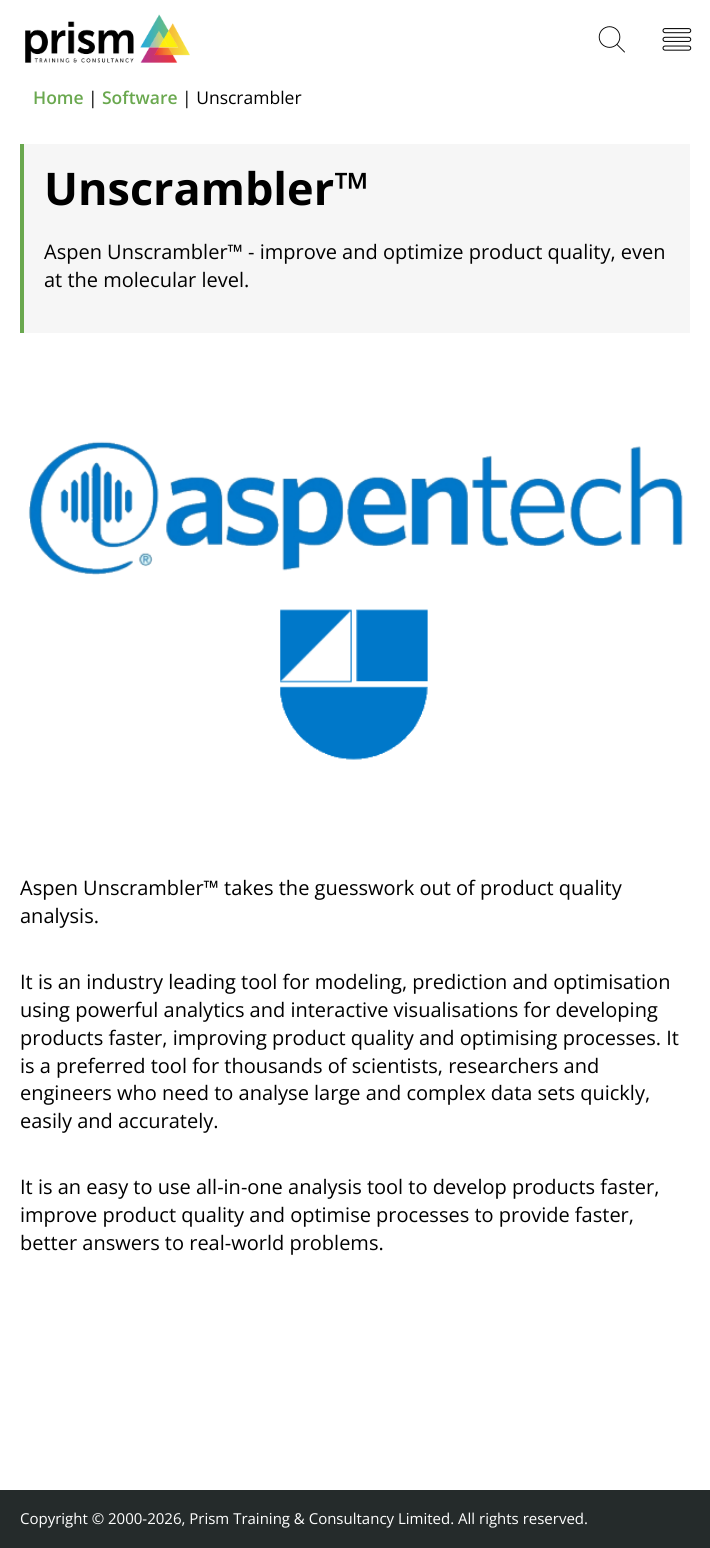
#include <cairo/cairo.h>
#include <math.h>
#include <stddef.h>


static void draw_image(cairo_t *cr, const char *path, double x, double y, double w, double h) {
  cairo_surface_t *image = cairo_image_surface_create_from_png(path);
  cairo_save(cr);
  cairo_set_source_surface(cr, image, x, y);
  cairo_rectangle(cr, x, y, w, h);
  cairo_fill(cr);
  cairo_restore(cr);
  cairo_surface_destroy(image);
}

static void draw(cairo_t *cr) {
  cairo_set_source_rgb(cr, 1, 1, 1);
  cairo_paint(cr);
  draw_image(cr, "images/1.png", 25, 14, 165, 49);
  draw_image(cr, "images/2.png", 598, 26, 27, 27);
  draw_image(cr, "images/3.png", 662, 28, 30, 23);
  cairo_set_source_rgb(cr, 246 / 255.0, 246 / 255.0, 246 / 255.0);
  cairo_rectangle(cr, 24, 144, 666, 189);
  cairo_fill(cr);
  cairo_set_source_rgb(cr, 106 / 255.0, 168 / 255.0, 79 / 255.0);
  cairo_rectangle(cr, 20, 144, 4, 189);
  cairo_fill(cr);
  draw_image(cr, "images/4.png", 28, 441, 655, 319);
  cairo_set_source_rgb(cr, 37 / 255.0, 43 / 255.0, 43 / 255.0);
  cairo_rectangle(cr, 0, 1490, 710, 58);
  cairo_fill(cr);
  cairo_select_font_face(cr, "Open Sans SemiBold", CAIRO_FONT_SLANT_NORMAL, CAIRO_FONT_WEIGHT_NORMAL);
  cairo_set_font_size(cr, 17.5);
  cairo_set_source_rgb(cr, 106 / 255.0, 168 / 255.0, 79 / 255.0);
  cairo_move_to(cr, 33, 104);
  cairo_show_text(cr, "Home");
  cairo_select_font_face(cr, "Open Sans", CAIRO_FONT_SLANT_NORMAL, CAIRO_FONT_WEIGHT_NORMAL);
  cairo_set_source_rgb(cr, 0, 0, 0);
  cairo_move_to(cr, 88, 104);
  cairo_show_text(cr, "|");
  cairo_select_font_face(cr, "Open Sans SemiBold", CAIRO_FONT_SLANT_NORMAL, CAIRO_FONT_WEIGHT_NORMAL);
  cairo_set_source_rgb(cr, 106 / 255.0, 168 / 255.0, 79 / 255.0);
  cairo_move_to(cr, 102, 104);
  cairo_show_text(cr, "Software");
  cairo_select_font_face(cr, "Open Sans", CAIRO_FONT_SLANT_NORMAL, CAIRO_FONT_WEIGHT_NORMAL);
  cairo_set_source_rgb(cr, 0, 0, 0);
  cairo_move_to(cr, 182, 104);
  cairo_show_text(cr, "| Unscrambler");
  cairo_select_font_face(cr, "Open Sans", CAIRO_FONT_SLANT_NORMAL, CAIRO_FONT_WEIGHT_BOLD);
  cairo_set_font_size(cr, 45);
  cairo_move_to(cr, 44, 205);
  cairo_show_text(cr, "Unscrambler™");
  cairo_select_font_face(cr, "Open Sans", CAIRO_FONT_SLANT_NORMAL, CAIRO_FONT_WEIGHT_NORMAL);
  cairo_set_font_size(cr, 20);
  cairo_move_to(cr, 44, 259);
  cairo_show_text(cr, "Aspen Unscrambler™ - improve and optimize product quality, even");
  cairo_move_to(cr, 44, 287);
  cairo_show_text(cr, "at the molecular level.");
  cairo_move_to(cr, 20, 895);
  cairo_show_text(cr, "Aspen Unscrambler™ takes the guesswork out of product quality");
  cairo_move_to(cr, 20, 923);
  cairo_show_text(cr, "analysis.");
  cairo_move_to(cr, 20, 989);
  cairo_show_text(cr, "It is an industry leading tool for modeling, prediction and optimisation");
  cairo_move_to(cr, 20, 1017);
  cairo_show_text(cr, "using powerful analytics and interactive visualisations for developing");
  cairo_move_to(cr, 20, 1045);
  cairo_show_text(cr, "products faster, improving product quality and optimising processes. It");
  cairo_move_to(cr, 20, 1073);
  cairo_show_text(cr, "is a preferred tool for thousands of scientists, researchers and");
  cairo_move_to(cr, 20, 1100);
  cairo_show_text(cr, "engineers who need to analyse large and complex data sets quickly,");
  cairo_move_to(cr, 20, 1128);
  cairo_show_text(cr, "easily and accurately.");
  cairo_move_to(cr, 20, 1194);
  cairo_show_text(cr, "It is an easy to use all-in-one analysis tool to develop products faster,");
  cairo_move_to(cr, 20, 1222);
  cairo_show_text(cr, "improve product quality and optimise processes to provide faster,");
  cairo_move_to(cr, 20, 1250);
  cairo_show_text(cr, "better answers to real-world problems.");
  cairo_set_font_size(cr, 15);
  cairo_set_source_rgb(cr, 1, 1, 1);
  cairo_move_to(cr, 20, 1524);
  cairo_show_text(cr, "Copyright © 2000-2026, Prism Training & Consultancy Limited. All rights reserved.");
}

int main(void) {
  cairo_surface_t *surface = cairo_image_surface_create(CAIRO_FORMAT_RGB24, 710, 1548);
  cairo_t *cr = cairo_create(surface);
  cairo_font_options_t *options = cairo_font_options_create();
  cairo_font_options_set_hint_metrics(options, CAIRO_HINT_METRICS_OFF);
  cairo_font_options_set_hint_style(options, CAIRO_HINT_STYLE_NONE);
  cairo_set_font_options(cr, options);
  cairo_set_miter_limit(cr, 4);
  draw(cr);
  cairo_surface_write_to_png(surface, "out.png");
  cairo_font_options_destroy(options);
  cairo_destroy(cr);
  cairo_surface_destroy(surface);
  return 0;
}
